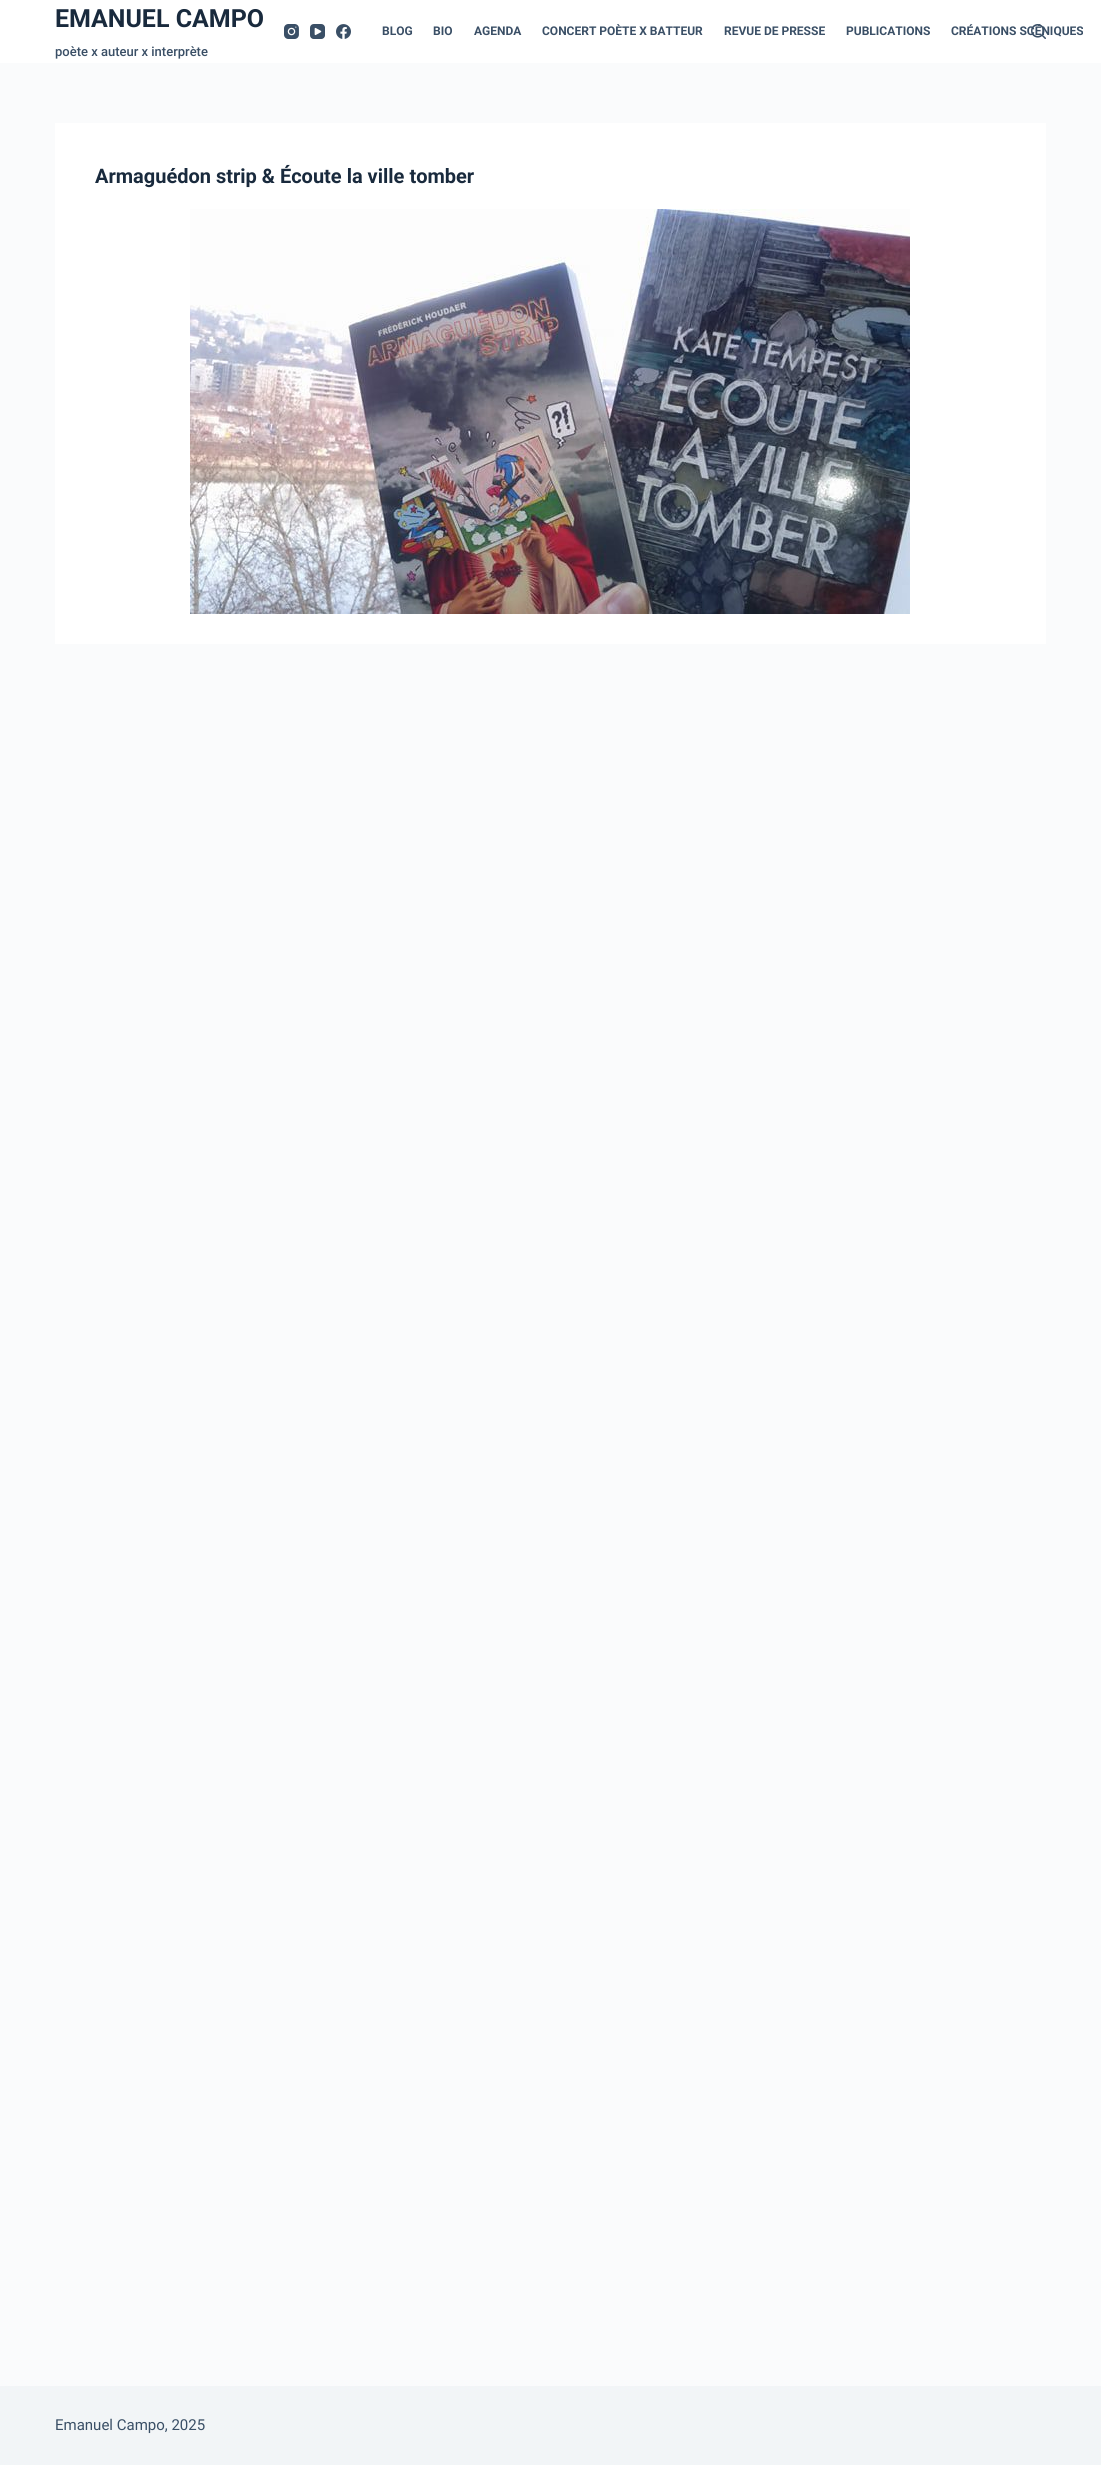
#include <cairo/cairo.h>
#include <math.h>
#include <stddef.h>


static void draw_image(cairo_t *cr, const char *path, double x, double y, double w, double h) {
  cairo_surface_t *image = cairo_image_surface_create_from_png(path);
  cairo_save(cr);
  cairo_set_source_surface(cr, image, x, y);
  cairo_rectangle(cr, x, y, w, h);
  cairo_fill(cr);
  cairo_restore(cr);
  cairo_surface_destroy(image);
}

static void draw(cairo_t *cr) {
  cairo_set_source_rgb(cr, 250 / 255.0, 251 / 255.0, 252 / 255.0);
  cairo_paint(cr);
  cairo_set_source_rgb(cr, 1, 1, 1);
  cairo_rectangle(cr, 0, 0, 1101, 63);
  cairo_fill(cr);
  draw_image(cr, "images/1.png", 284, 24, 15, 15);
  draw_image(cr, "images/2.png", 310, 24, 15, 15);
  draw_image(cr, "images/3.png", 336, 24, 15, 15);
  cairo_rectangle(cr, 55, 123, 991, 521);
  cairo_fill(cr);
  draw_image(cr, "images/5.png", 190, 209, 720, 405);
  cairo_set_source_rgb(cr, 242 / 255.0, 245 / 255.0, 247 / 255.0);
  cairo_rectangle(cr, 0, 2386, 1101, 79);
  cairo_fill(cr);
  cairo_select_font_face(cr, "Roboto", CAIRO_FONT_SLANT_NORMAL, CAIRO_FONT_WEIGHT_BOLD);
  cairo_set_font_size(cr, 25);
  cairo_set_source_rgb(cr, 25 / 255.0, 42 / 255.0, 61 / 255.0);
  cairo_move_to(cr, 55, 27);
  cairo_show_text(cr, "EMANUEL CAMPO");
  cairo_select_font_face(cr, "Roboto Medium", CAIRO_FONT_SLANT_NORMAL, CAIRO_FONT_WEIGHT_NORMAL);
  cairo_set_font_size(cr, 13);
  cairo_set_source_rgb(cr, 58 / 255.0, 79 / 255.0, 102 / 255.0);
  cairo_move_to(cr, 55, 56);
  cairo_show_text(cr, "poète x auteur x interprète");
  cairo_select_font_face(cr, "Roboto", CAIRO_FONT_SLANT_NORMAL, CAIRO_FONT_WEIGHT_BOLD);
  cairo_set_font_size(cr, 12);
  cairo_move_to(cr, 382, 35);
  cairo_show_text(cr, "BLOG");
  cairo_move_to(cr, 433, 35);
  cairo_show_text(cr, "BIO");
  cairo_move_to(cr, 474, 35);
  cairo_show_text(cr, "AGENDA");
  cairo_move_to(cr, 542, 35);
  cairo_show_text(cr, "CONCERT POÈTE X BATTEUR");
  cairo_move_to(cr, 724, 35);
  cairo_show_text(cr, "REVUE DE PRESSE");
  cairo_move_to(cr, 846, 35);
  cairo_show_text(cr, "PUBLICATIONS");
  cairo_move_to(cr, 951, 35);
  cairo_show_text(cr, "CRÉATIONS SCÉNIQUES");
  draw_image(cr, "images/4.png", 1031, 24, 15, 15);
  cairo_set_font_size(cr, 20);
  cairo_set_source_rgb(cr, 25 / 255.0, 42 / 255.0, 61 / 255.0);
  cairo_move_to(cr, 95, 183);
  cairo_show_text(cr, "Armaguédon strip & Écoute la ville tomber");
  cairo_select_font_face(cr, "Roboto", CAIRO_FONT_SLANT_NORMAL, CAIRO_FONT_WEIGHT_NORMAL);
  cairo_set_font_size(cr, 15);
  cairo_set_source_rgb(cr, 58 / 255.0, 79 / 255.0, 102 / 255.0);
  cairo_move_to(cr, 55, 2430);
  cairo_show_text(cr, "Emanuel Campo, 2025");
}

int main(void) {
  cairo_surface_t *surface = cairo_image_surface_create(CAIRO_FORMAT_RGB24, 1101, 2465);
  cairo_t *cr = cairo_create(surface);
  cairo_font_options_t *options = cairo_font_options_create();
  cairo_font_options_set_hint_metrics(options, CAIRO_HINT_METRICS_OFF);
  cairo_font_options_set_hint_style(options, CAIRO_HINT_STYLE_NONE);
  cairo_set_font_options(cr, options);
  cairo_set_miter_limit(cr, 4);
  draw(cr);
  cairo_surface_write_to_png(surface, "out.png");
  cairo_font_options_destroy(options);
  cairo_destroy(cr);
  cairo_surface_destroy(surface);
  return 0;
}
